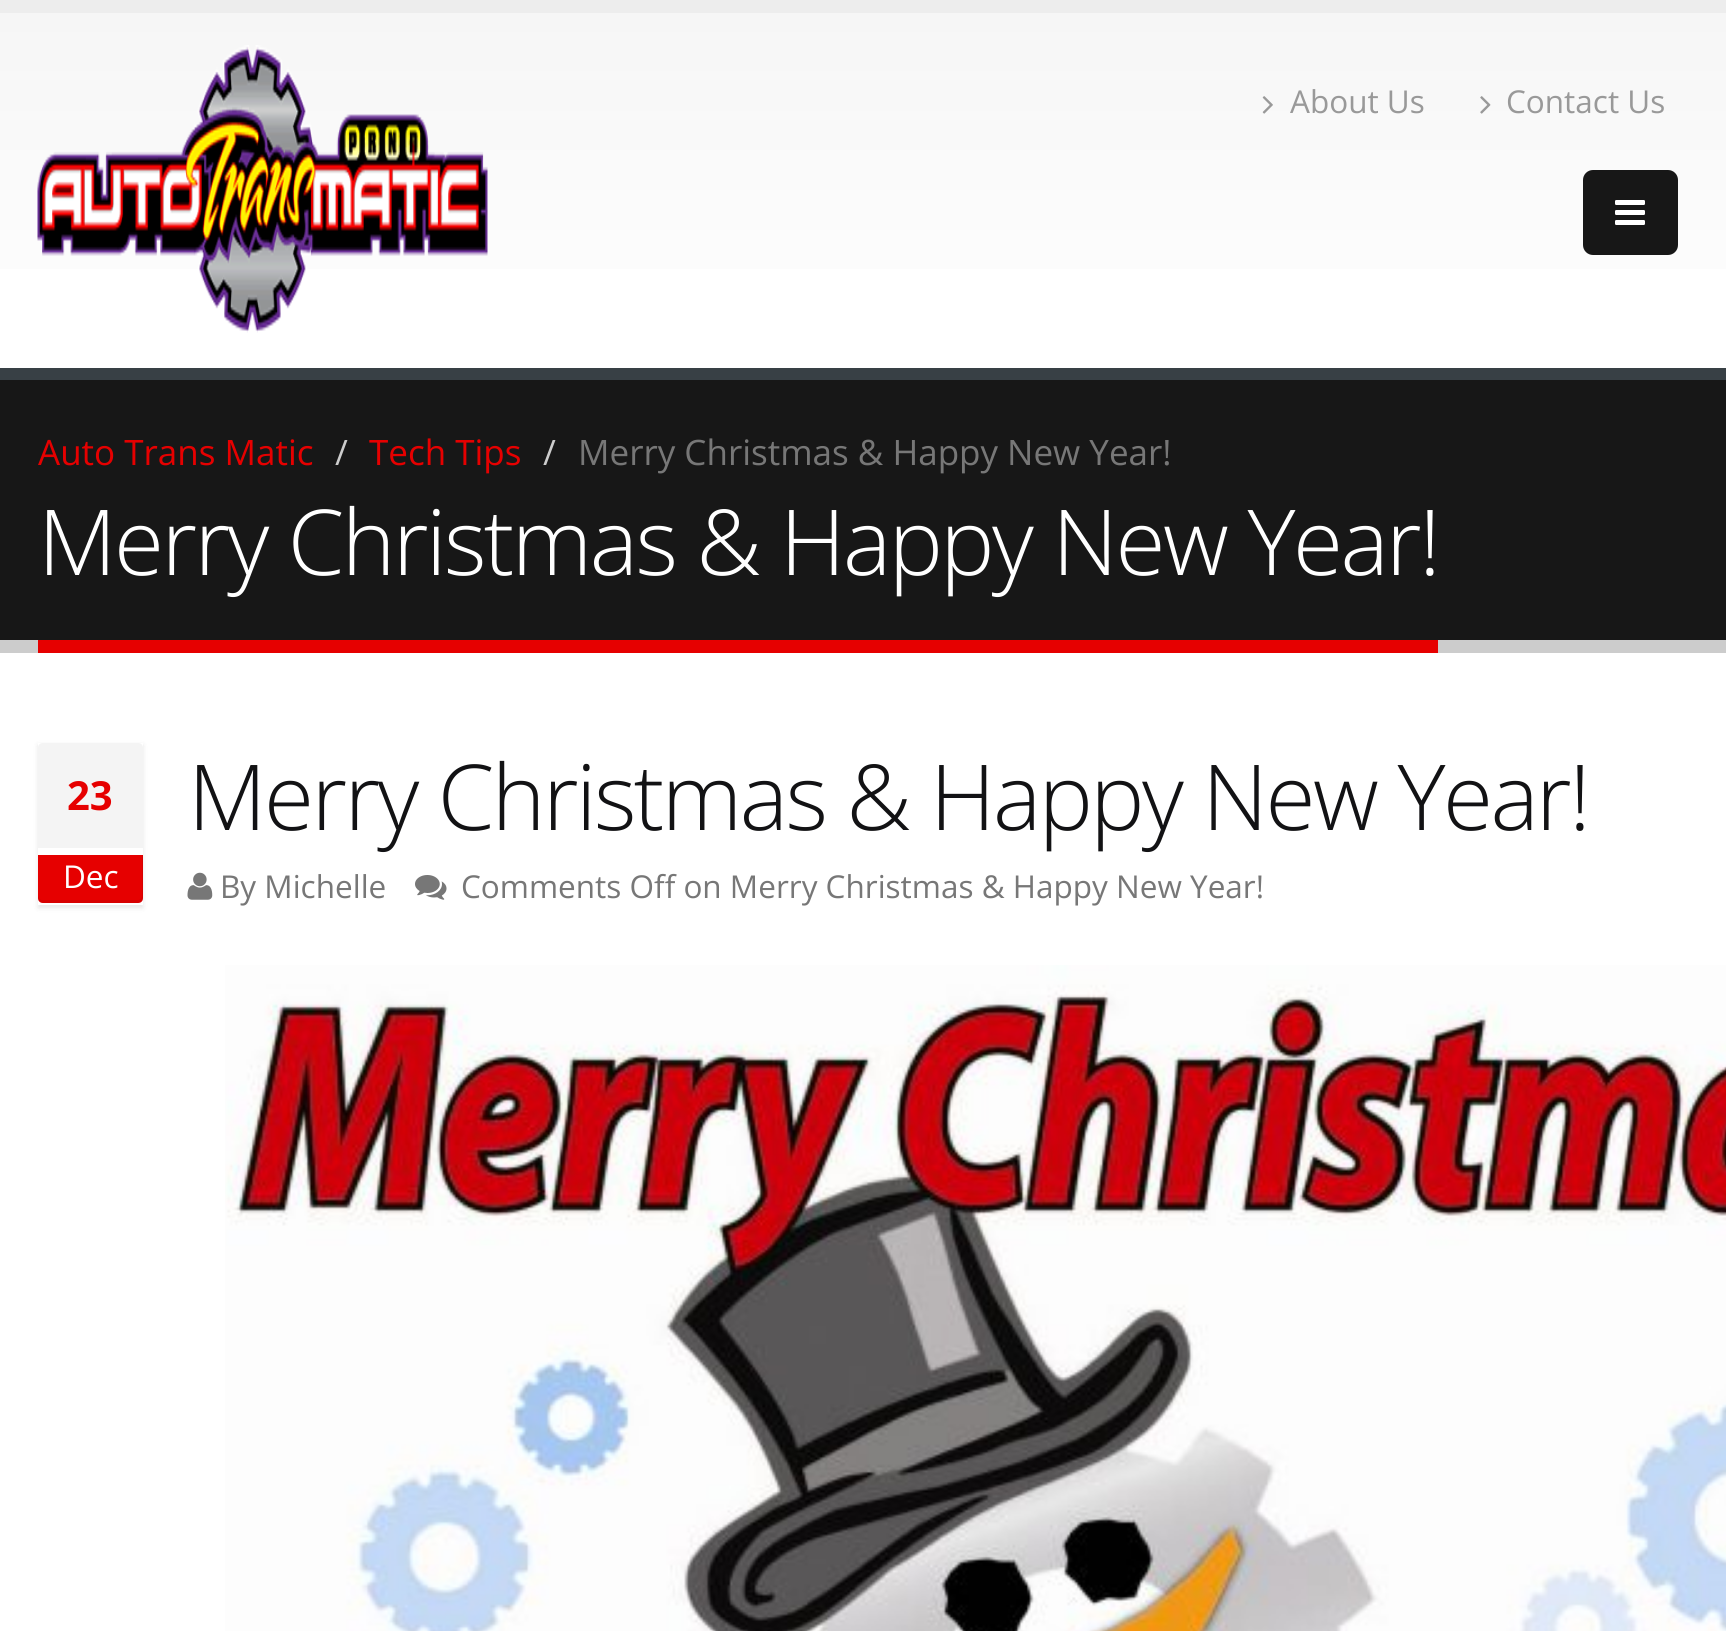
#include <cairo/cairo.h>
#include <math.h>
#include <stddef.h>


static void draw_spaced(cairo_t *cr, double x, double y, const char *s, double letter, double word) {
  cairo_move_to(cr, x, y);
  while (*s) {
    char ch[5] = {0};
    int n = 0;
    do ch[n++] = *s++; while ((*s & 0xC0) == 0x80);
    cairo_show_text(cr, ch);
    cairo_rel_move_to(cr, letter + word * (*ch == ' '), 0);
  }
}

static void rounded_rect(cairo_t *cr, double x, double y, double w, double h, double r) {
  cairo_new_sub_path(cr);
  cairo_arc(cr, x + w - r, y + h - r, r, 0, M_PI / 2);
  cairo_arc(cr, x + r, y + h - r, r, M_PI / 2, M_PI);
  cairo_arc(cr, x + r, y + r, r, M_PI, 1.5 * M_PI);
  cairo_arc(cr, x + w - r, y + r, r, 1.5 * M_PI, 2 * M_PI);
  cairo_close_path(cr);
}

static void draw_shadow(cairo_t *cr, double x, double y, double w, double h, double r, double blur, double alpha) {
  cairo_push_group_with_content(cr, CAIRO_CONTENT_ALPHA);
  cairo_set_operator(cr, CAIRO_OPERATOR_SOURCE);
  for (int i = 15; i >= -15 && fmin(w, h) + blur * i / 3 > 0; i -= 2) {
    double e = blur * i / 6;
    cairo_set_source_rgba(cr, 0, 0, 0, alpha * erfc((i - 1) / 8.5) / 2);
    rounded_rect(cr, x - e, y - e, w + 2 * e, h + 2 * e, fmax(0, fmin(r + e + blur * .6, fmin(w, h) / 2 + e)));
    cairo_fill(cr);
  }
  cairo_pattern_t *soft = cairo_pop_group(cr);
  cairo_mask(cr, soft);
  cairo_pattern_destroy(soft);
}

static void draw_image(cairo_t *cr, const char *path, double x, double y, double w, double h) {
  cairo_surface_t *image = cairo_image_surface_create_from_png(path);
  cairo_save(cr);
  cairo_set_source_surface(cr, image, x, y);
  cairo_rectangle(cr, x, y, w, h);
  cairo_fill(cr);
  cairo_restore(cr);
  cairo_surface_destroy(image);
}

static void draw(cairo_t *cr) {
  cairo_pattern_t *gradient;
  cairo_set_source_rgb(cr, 1, 1, 1);
  cairo_paint(cr);
  gradient = cairo_pattern_create_linear(864, 12, 864, 368);
  cairo_pattern_add_color_stop_rgba(gradient, 0, 246 / 255.0, 246 / 255.0, 246 / 255.0, 1);
  cairo_pattern_add_color_stop_rgba(gradient, 1, 1, 1, 1, 1);
  cairo_set_source(cr, gradient);
  cairo_pattern_destroy(gradient);
  cairo_rectangle(cr, 0, 13, 1726, 256);
  cairo_fill(cr);
  cairo_set_source_rgb(cr, 237 / 255.0, 237 / 255.0, 237 / 255.0);
  cairo_rectangle(cr, 0, 0, 1726, 13);
  cairo_fill(cr);
  draw_image(cr, "images/1.png", 37, 45, 451, 288);
  draw_image(cr, "images/2.png", 1262, 96, 11, 18);
  draw_image(cr, "images/3.png", 1480, 96, 11, 18);
  cairo_set_source_rgb(cr, 23 / 255.0, 23 / 255.0, 23 / 255.0);
  rounded_rect(cr, 1583, 170, 95, 85, 10);
  cairo_fill(cr);
  draw_image(cr, "images/4.png", 1615, 200, 30, 25);
  cairo_rectangle(cr, 0, 380, 1726, 260);
  cairo_fill(cr);
  cairo_set_source_rgb(cr, 56 / 255.0, 64 / 255.0, 69 / 255.0);
  cairo_rectangle(cr, 0, 368, 1726, 12);
  cairo_fill(cr);
  cairo_set_source_rgb(cr, 204 / 255.0, 204 / 255.0, 204 / 255.0);
  cairo_rectangle(cr, 0, 640, 1726, 13);
  cairo_fill(cr);
  cairo_set_source_rgb(cr, 230 / 255.0, 0, 0);
  cairo_rectangle(cr, 38, 640, 1400, 13);
  cairo_fill(cr);
  cairo_save(cr);
  cairo_set_fill_rule(cr, CAIRO_FILL_RULE_EVEN_ODD);
  cairo_new_path(cr);
  cairo_move_to(cr, 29, 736);
  cairo_line_to(cr, 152, 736);
  cairo_line_to(cr, 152, 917);
  cairo_line_to(cr, 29, 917);
  cairo_close_path(cr);
  cairo_move_to(cr, 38, 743);
  cairo_line_to(cr, 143, 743);
  cairo_line_to(cr, 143, 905);
  cairo_line_to(cr, 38, 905);
  cairo_close_path(cr);
  cairo_clip(cr);
  cairo_set_source_rgb(cr, 0, 0, 0);
  draw_shadow(cr, 38, 745, 105, 163, 0, 2.5, 0.1);
  cairo_restore(cr);
  cairo_set_source_rgb(cr, 244 / 255.0, 244 / 255.0, 244 / 255.0);
  cairo_new_path(cr);
  cairo_move_to(cr, 43, 743);
  cairo_line_to(cr, 138, 743);
  cairo_curve_to(cr, 141, 743, 143, 745, 143, 748);
  cairo_line_to(cr, 143, 848);
  cairo_line_to(cr, 38, 848);
  cairo_line_to(cr, 38, 748);
  cairo_curve_to(cr, 38, 745, 40, 743, 43, 743);
  cairo_close_path(cr);
  cairo_fill(cr);
  cairo_set_source_rgb(cr, 230 / 255.0, 0, 0);
  cairo_new_path(cr);
  cairo_move_to(cr, 38, 855);
  cairo_line_to(cr, 143, 855);
  cairo_line_to(cr, 143, 898);
  cairo_curve_to(cr, 143, 901, 141, 903, 138, 903);
  cairo_line_to(cr, 43, 903);
  cairo_curve_to(cr, 40, 903, 38, 901, 38, 898);
  cairo_close_path(cr);
  cairo_fill(cr);
  cairo_set_source_rgba(cr, 0, 0, 0, 0.07);
  cairo_new_path(cr);
  cairo_move_to(cr, 38, 895);
  cairo_line_to(cr, 38, 898);
  cairo_curve_to(cr, 38, 901, 40, 903, 43, 903);
  cairo_line_to(cr, 138, 903);
  cairo_curve_to(cr, 141, 903, 143, 901, 143, 898);
  cairo_line_to(cr, 143, 855);
  cairo_line_to(cr, 142, 855);
  cairo_line_to(cr, 142, 895);
  cairo_curve_to(cr, 142, 898, 140, 900, 138, 900);
  cairo_line_to(cr, 42, 900);
  cairo_curve_to(cr, 40, 900, 38, 898, 38, 895);
  cairo_close_path(cr);
  cairo_fill(cr);
  draw_image(cr, "images/5.png", 187, 872, 26, 28);
  draw_image(cr, "images/6.png", 415, 875, 32, 25);
  draw_image(cr, "images/7.png", 225, 965, 1501, 666);
  cairo_select_font_face(cr, "Open Sans", CAIRO_FONT_SLANT_NORMAL, CAIRO_FONT_WEIGHT_NORMAL);
  cairo_set_font_size(cr, 31.5);
  cairo_set_source_rgb(cr, 153 / 255.0, 153 / 255.0, 153 / 255.0);
  cairo_move_to(cr, 1290, 113);
  cairo_show_text(cr, "About Us");
  cairo_move_to(cr, 1506, 113);
  cairo_show_text(cr, "Contact Us");
  cairo_set_font_size(cr, 35);
  cairo_set_source_rgb(cr, 230 / 255.0, 0, 0);
  cairo_move_to(cr, 38, 465);
  cairo_show_text(cr, "Auto Trans Matic");
  cairo_set_source_rgb(cr, 204 / 255.0, 204 / 255.0, 204 / 255.0);
  cairo_move_to(cr, 335, 465);
  cairo_show_text(cr, "/");
  cairo_set_source_rgb(cr, 230 / 255.0, 0, 0);
  cairo_move_to(cr, 369, 465);
  cairo_show_text(cr, "Tech Tips");
  cairo_set_source_rgb(cr, 204 / 255.0, 204 / 255.0, 204 / 255.0);
  cairo_move_to(cr, 543, 465);
  cairo_show_text(cr, "/");
  cairo_set_source_rgb(cr, 119 / 255.0, 119 / 255.0, 119 / 255.0);
  cairo_move_to(cr, 578, 465);
  cairo_show_text(cr, "Merry Christmas & Happy New Year!");
  cairo_select_font_face(cr, "Open Sans Light", CAIRO_FONT_SLANT_NORMAL, CAIRO_FONT_WEIGHT_NORMAL);
  cairo_set_font_size(cr, 91);
  cairo_set_source_rgb(cr, 1, 1, 1);
  draw_spaced(cr, 38, 575, "Merry Christmas & Happy New Year!", -2.5, 0);
  cairo_select_font_face(cr, "Open Sans", CAIRO_FONT_SLANT_NORMAL, CAIRO_FONT_WEIGHT_BOLD);
  cairo_set_font_size(cr, 40);
  cairo_set_source_rgb(cr, 230 / 255.0, 0, 0);
  cairo_move_to(cr, 67, 810);
  cairo_show_text(cr, "23");
  cairo_select_font_face(cr, "Open Sans", CAIRO_FONT_SLANT_NORMAL, CAIRO_FONT_WEIGHT_NORMAL);
  cairo_set_font_size(cr, 31.5);
  cairo_set_source_rgb(cr, 1, 1, 1);
  cairo_move_to(cr, 63, 888);
  cairo_show_text(cr, "Dec");
  cairo_select_font_face(cr, "Open Sans Light", CAIRO_FONT_SLANT_NORMAL, CAIRO_FONT_WEIGHT_NORMAL);
  cairo_set_font_size(cr, 91);
  cairo_set_source_rgb(cr, 18 / 255.0, 18 / 255.0, 20 / 255.0);
  draw_spaced(cr, 188, 830, "Merry Christmas & Happy New Year!", -2.5, 0);
  cairo_select_font_face(cr, "Open Sans", CAIRO_FONT_SLANT_NORMAL, CAIRO_FONT_WEIGHT_NORMAL);
  cairo_set_font_size(cr, 31.5);
  cairo_set_source_rgb(cr, 119 / 255.0, 119 / 255.0, 119 / 255.0);
  cairo_move_to(cr, 220, 898);
  cairo_show_text(cr, "By Michelle");
  cairo_move_to(cr, 461, 898);
  cairo_show_text(cr, "Comments Off on Merry Christmas & Happy New Year!");
}

int main(void) {
  cairo_surface_t *surface = cairo_image_surface_create(CAIRO_FORMAT_RGB24, 1726, 1631);
  cairo_t *cr = cairo_create(surface);
  cairo_font_options_t *options = cairo_font_options_create();
  cairo_font_options_set_hint_metrics(options, CAIRO_HINT_METRICS_OFF);
  cairo_font_options_set_hint_style(options, CAIRO_HINT_STYLE_NONE);
  cairo_set_font_options(cr, options);
  cairo_set_miter_limit(cr, 4);
  draw(cr);
  cairo_surface_write_to_png(surface, "out.png");
  cairo_font_options_destroy(options);
  cairo_destroy(cr);
  cairo_surface_destroy(surface);
  return 0;
}
